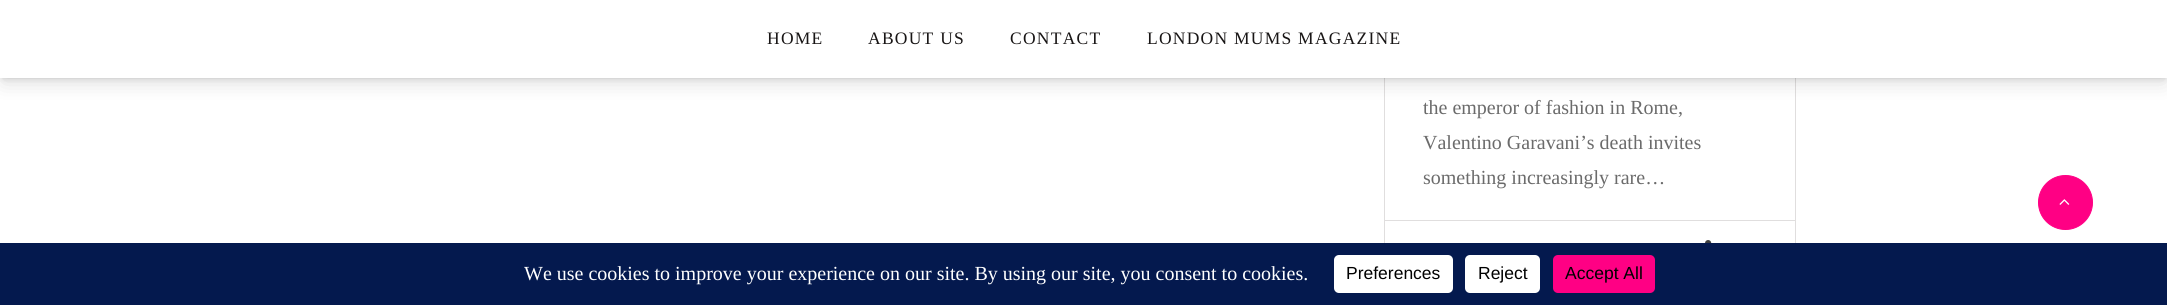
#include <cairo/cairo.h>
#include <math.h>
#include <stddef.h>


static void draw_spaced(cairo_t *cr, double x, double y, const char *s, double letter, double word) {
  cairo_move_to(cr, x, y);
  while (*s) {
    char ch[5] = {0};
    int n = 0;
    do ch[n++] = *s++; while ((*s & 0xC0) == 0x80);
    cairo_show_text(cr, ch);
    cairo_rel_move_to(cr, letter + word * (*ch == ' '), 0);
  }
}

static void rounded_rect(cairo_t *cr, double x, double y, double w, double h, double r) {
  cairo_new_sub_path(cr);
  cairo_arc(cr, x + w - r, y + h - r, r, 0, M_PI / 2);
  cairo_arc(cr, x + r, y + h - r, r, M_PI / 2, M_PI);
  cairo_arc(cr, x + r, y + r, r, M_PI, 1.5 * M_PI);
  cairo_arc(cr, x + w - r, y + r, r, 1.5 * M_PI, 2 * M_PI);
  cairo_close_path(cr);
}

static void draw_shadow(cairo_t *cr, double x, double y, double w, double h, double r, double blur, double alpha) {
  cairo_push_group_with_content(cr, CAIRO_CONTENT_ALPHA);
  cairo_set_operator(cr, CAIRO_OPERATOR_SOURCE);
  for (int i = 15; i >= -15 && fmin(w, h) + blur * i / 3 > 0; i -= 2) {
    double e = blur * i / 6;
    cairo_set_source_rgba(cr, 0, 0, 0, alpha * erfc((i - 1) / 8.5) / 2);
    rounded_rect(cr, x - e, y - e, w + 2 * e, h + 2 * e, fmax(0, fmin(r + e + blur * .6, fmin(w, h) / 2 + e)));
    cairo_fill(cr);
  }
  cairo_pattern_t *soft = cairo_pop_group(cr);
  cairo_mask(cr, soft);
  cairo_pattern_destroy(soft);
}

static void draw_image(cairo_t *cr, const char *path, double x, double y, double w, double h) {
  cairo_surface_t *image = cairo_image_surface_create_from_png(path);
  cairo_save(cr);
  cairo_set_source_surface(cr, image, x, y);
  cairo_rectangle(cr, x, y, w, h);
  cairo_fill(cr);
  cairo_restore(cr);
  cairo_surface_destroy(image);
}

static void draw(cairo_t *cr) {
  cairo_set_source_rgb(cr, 1, 1, 1);
  cairo_paint(cr);
  cairo_set_source_rgb(cr, 224 / 255.0, 222 / 255.0, 222 / 255.0);
  cairo_set_fill_rule(cr, CAIRO_FILL_RULE_EVEN_ODD);
  cairo_new_path(cr);
  cairo_move_to(cr, 1384, -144);
  cairo_line_to(cr, 1796, -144);
  cairo_line_to(cr, 1796, 272);
  cairo_curve_to(cr, 1796, 276, 1793, 279, 1790, 279);
  cairo_line_to(cr, 1390, 279);
  cairo_curve_to(cr, 1387, 279, 1384, 276, 1384, 272);
  cairo_close_path(cr);
  cairo_move_to(cr, 1385, -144);
  cairo_line_to(cr, 1795, -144);
  cairo_line_to(cr, 1795, 272);
  cairo_curve_to(cr, 1795, 275, 1793, 278, 1790, 278);
  cairo_line_to(cr, 1390, 278);
  cairo_curve_to(cr, 1387, 278, 1385, 275, 1385, 272);
  cairo_close_path(cr);
  cairo_fill(cr);
  cairo_set_source_rgb(cr, 0, 0, 0);
  draw_shadow(cr, 3, 9, 2162, 72, 0, 10.5, 0.15);
  draw_shadow(cr, 3, 5, 2162, 73, 0, 3, 0.15);
  cairo_set_source_rgb(cr, 1, 1, 1);
  cairo_rectangle(cr, 0, 0, 2167, 78);
  cairo_fill(cr);
  cairo_set_source_rgb(cr, 224 / 255.0, 222 / 255.0, 222 / 255.0);
  cairo_rectangle(cr, 1385, 220, 410, 1);
  cairo_fill(cr);
  draw_image(cr, "images/1.png", 1705, 240, 7, 3);
  cairo_set_source_rgb(cr, 1, 0, 132 / 255.0);
  cairo_arc(cr, 2065.5, 202.5, 27, 0, 2 * M_PI);
  cairo_fill_preserve(cr);
  cairo_set_line_width(cr, 1);
  cairo_stroke(cr);
  draw_image(cr, "images/2.png", 2059, 199, 11, 6);
  cairo_set_source_rgb(cr, 4 / 255.0, 25 / 255.0, 78 / 255.0);
  cairo_rectangle(cr, 0, 243, 2167, 62);
  cairo_fill(cr);
  cairo_set_source_rgb(cr, 1, 1, 1);
  rounded_rect(cr, 1334, 255, 119, 38, 5);
  cairo_fill(cr);
  rounded_rect(cr, 1465, 255, 75, 38, 5);
  cairo_fill(cr);
  cairo_set_source_rgb(cr, 1, 0, 132 / 255.0);
  rounded_rect(cr, 1553, 255, 102, 38, 5);
  cairo_fill(cr);
  cairo_select_font_face(cr, "Liberation Serif", CAIRO_FONT_SLANT_NORMAL, CAIRO_FONT_WEIGHT_NORMAL);
  cairo_set_font_size(cr, 17.5);
  cairo_set_source_rgb(cr, 24 / 255.0, 21 / 255.0, 21 / 255.0);
  draw_spaced(cr, 767, 44, "HOME", 1.25, 0);
  draw_spaced(cr, 868, 44, "ABOUT US", 1.25, 0);
  draw_spaced(cr, 1010, 44, "CONTACT", 1.25, 0);
  draw_spaced(cr, 1147, 44, "LONDON MUMS MAGAZINE", 1.25, 0);
  cairo_set_font_size(cr, 20);
  cairo_set_source_rgb(cr, 107 / 255.0, 107 / 255.0, 107 / 255.0);
  cairo_move_to(cr, 1423, 114);
  cairo_show_text(cr, "the emperor of fashion in Rome,");
  cairo_move_to(cr, 1423, 149);
  cairo_show_text(cr, "Valentino Garavani’s death invites");
  cairo_move_to(cr, 1423, 184);
  cairo_show_text(cr, "something increasingly rare…");
  cairo_set_source_rgb(cr, 1, 1, 1);
  cairo_move_to(cr, 524, 280);
  cairo_show_text(cr, "We use cookies to improve your experience on our site. By using our site, you consent to cookies.");
  cairo_select_font_face(cr, "Liberation Sans", CAIRO_FONT_SLANT_NORMAL, CAIRO_FONT_WEIGHT_NORMAL);
  cairo_set_font_size(cr, 17.5);
  cairo_set_source_rgb(cr, 0, 0, 0);
  cairo_move_to(cr, 1346, 279);
  cairo_show_text(cr, "Preferences");
  cairo_move_to(cr, 1478, 279);
  cairo_show_text(cr, "Reject");
  cairo_move_to(cr, 1565, 279);
  cairo_show_text(cr, "Accept All");
}

int main(void) {
  cairo_surface_t *surface = cairo_image_surface_create(CAIRO_FORMAT_RGB24, 2167, 305);
  cairo_t *cr = cairo_create(surface);
  cairo_font_options_t *options = cairo_font_options_create();
  cairo_font_options_set_hint_metrics(options, CAIRO_HINT_METRICS_OFF);
  cairo_font_options_set_hint_style(options, CAIRO_HINT_STYLE_NONE);
  cairo_set_font_options(cr, options);
  cairo_set_miter_limit(cr, 4);
  draw(cr);
  cairo_surface_write_to_png(surface, "out.png");
  cairo_font_options_destroy(options);
  cairo_destroy(cr);
  cairo_surface_destroy(surface);
  return 0;
}
